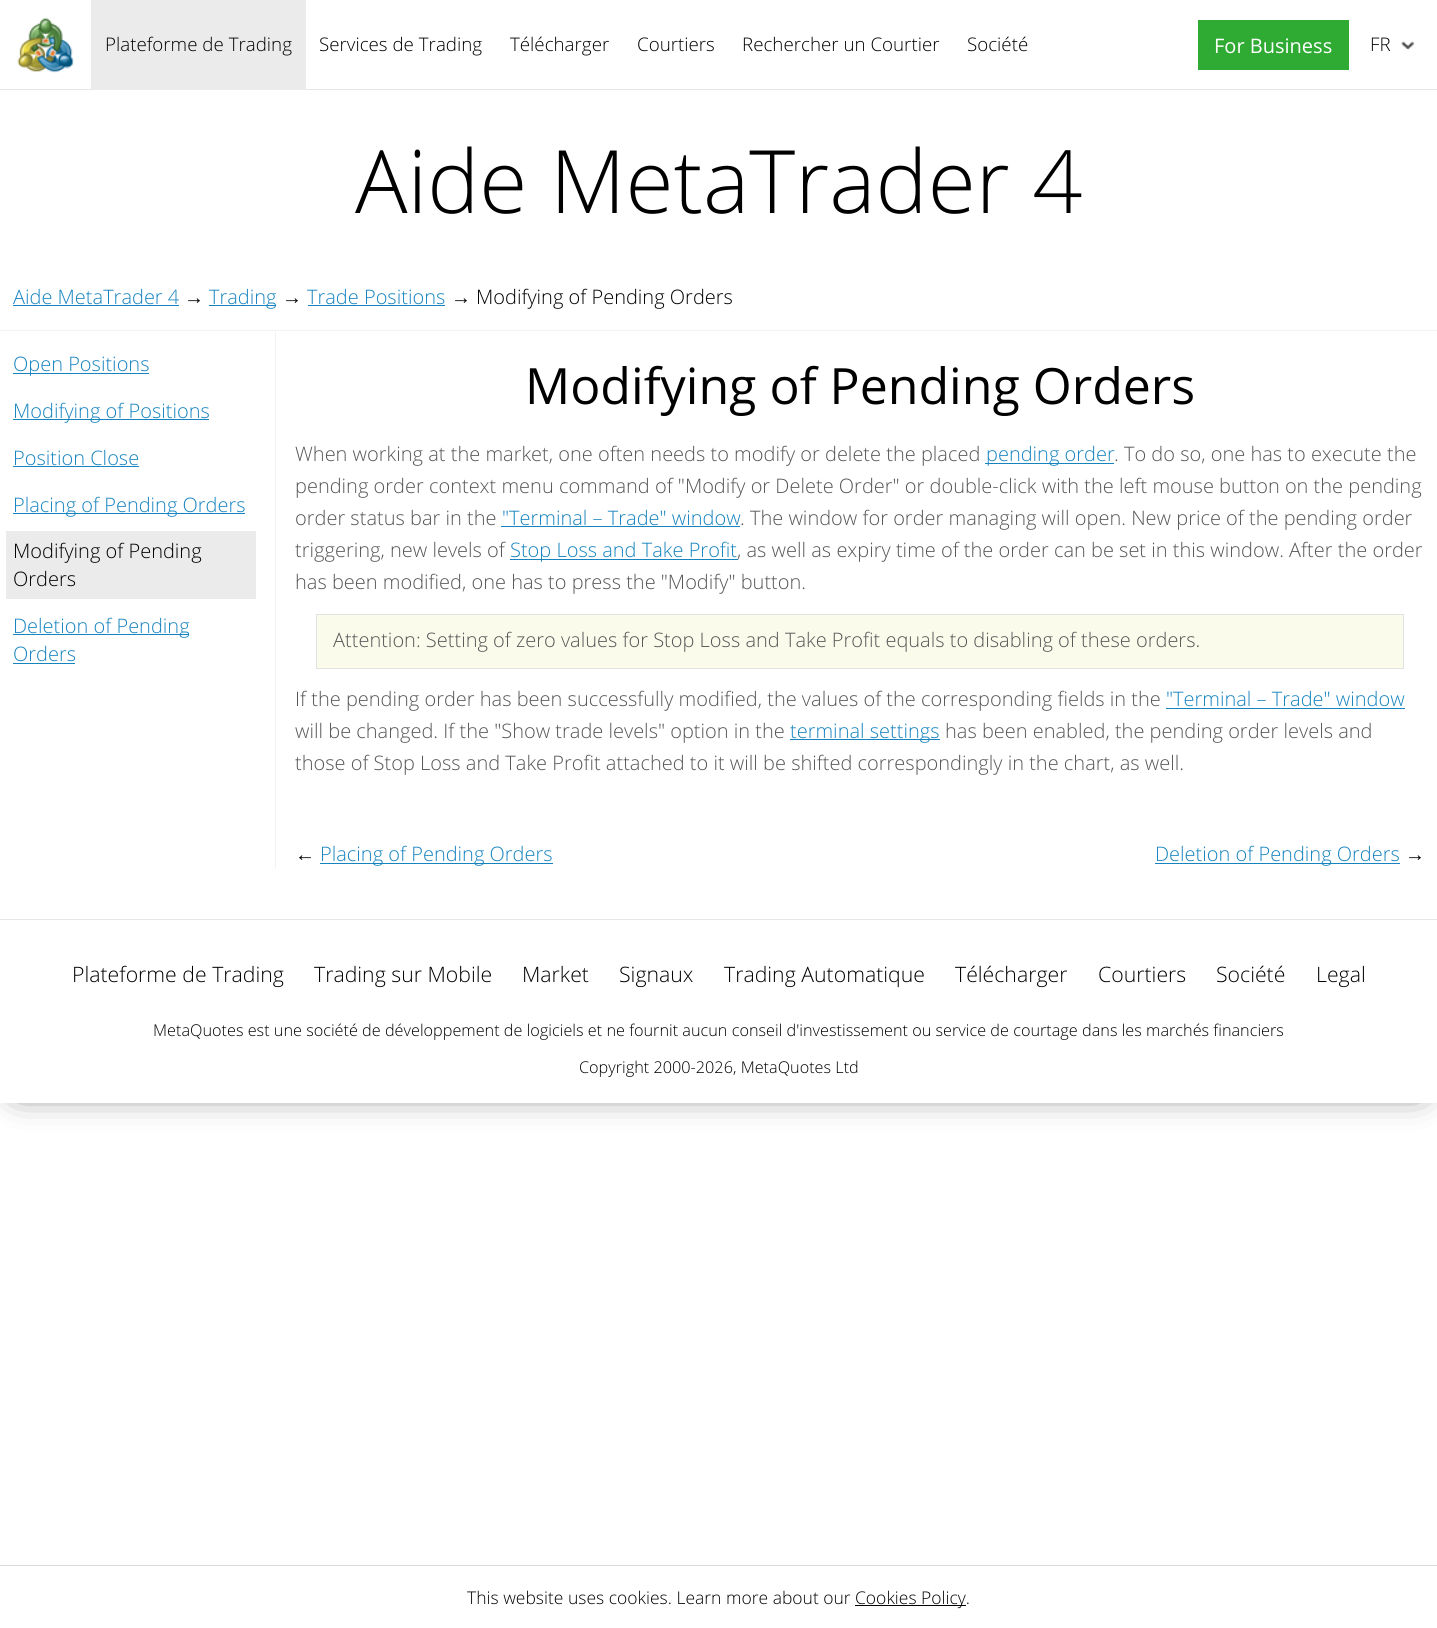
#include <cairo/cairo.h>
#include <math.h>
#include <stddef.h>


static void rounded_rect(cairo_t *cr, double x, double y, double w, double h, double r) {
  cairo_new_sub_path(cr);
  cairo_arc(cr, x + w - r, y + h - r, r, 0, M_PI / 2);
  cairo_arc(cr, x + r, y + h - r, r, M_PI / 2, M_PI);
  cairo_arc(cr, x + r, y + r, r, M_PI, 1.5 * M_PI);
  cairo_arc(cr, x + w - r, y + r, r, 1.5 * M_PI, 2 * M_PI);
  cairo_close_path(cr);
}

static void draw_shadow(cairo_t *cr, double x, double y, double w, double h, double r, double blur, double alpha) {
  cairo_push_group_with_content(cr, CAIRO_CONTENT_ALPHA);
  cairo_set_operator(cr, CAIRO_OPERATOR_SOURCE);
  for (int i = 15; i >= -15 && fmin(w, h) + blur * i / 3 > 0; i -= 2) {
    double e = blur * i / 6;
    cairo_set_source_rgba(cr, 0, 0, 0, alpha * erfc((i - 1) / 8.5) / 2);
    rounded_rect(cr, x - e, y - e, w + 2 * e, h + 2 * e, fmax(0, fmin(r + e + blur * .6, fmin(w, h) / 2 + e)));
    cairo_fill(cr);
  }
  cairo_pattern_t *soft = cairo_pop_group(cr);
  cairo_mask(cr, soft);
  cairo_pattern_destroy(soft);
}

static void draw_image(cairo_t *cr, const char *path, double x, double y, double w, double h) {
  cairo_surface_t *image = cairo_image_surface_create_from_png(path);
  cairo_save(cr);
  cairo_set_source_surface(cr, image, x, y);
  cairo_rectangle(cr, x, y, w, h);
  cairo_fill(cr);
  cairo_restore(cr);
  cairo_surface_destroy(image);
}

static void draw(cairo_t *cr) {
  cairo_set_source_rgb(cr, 1, 1, 1);
  cairo_paint(cr);
  cairo_save(cr);
  cairo_set_fill_rule(cr, CAIRO_FILL_RULE_EVEN_ODD);
  cairo_new_path(cr);
  cairo_move_to(cr, 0, 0);
  cairo_line_to(cr, 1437, 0);
  cairo_line_to(cr, 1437, 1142);
  cairo_line_to(cr, 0, 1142);
  cairo_close_path(cr);
  cairo_move_to(cr, 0, 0);
  cairo_line_to(cr, 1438, 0);
  cairo_line_to(cr, 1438, 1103);
  cairo_line_to(cr, 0, 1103);
  cairo_close_path(cr);
  cairo_clip(cr);
  cairo_set_source_rgb(cr, 0, 0, 0);
  draw_shadow(cr, 19, 19, 1400, 1065, 0, 19, 1);
  cairo_restore(cr);
  cairo_set_source_rgb(cr, 230 / 255.0, 230 / 255.0, 230 / 255.0);
  cairo_rectangle(cr, 0, 89, 1437, 1);
  cairo_fill(cr);
  draw_image(cr, "images/1.png", 17, 17, 57, 56);
  cairo_set_source_rgb(cr, 235 / 255.0, 235 / 255.0, 235 / 255.0);
  cairo_rectangle(cr, 91, 0, 215, 90);
  cairo_fill(cr);
  cairo_set_source_rgb(cr, 47 / 255.0, 171 / 255.0, 52 / 255.0);
  cairo_rectangle(cr, 1198, 20, 151, 50);
  cairo_fill(cr);
  draw_image(cr, "images/2.png", 1401, 41, 14, 9);
  cairo_set_source_rgb(cr, 243 / 255.0, 243 / 255.0, 243 / 255.0);
  cairo_rectangle(cr, 0, 330, 1437, 1);
  cairo_fill(cr);
  cairo_set_source_rgb(cr, 23 / 255.0, 132 / 255.0, 192 / 255.0);
  cairo_rectangle(cr, 13, 305, 166, 1);
  cairo_fill(cr);
  cairo_rectangle(cr, 209, 305, 67, 1);
  cairo_fill(cr);
  cairo_rectangle(cr, 308, 305, 137, 1);
  cairo_fill(cr);
  cairo_rectangle(cr, 13, 373, 136, 1);
  cairo_fill(cr);
  cairo_rectangle(cr, 13, 419, 196, 1);
  cairo_fill(cr);
  cairo_rectangle(cr, 13, 466, 126, 1);
  cairo_fill(cr);
  cairo_rectangle(cr, 13, 513, 232, 1);
  cairo_fill(cr);
  cairo_set_source_rgb(cr, 235 / 255.0, 235 / 255.0, 235 / 255.0);
  cairo_rectangle(cr, 6, 531, 250, 68);
  cairo_fill(cr);
  cairo_set_source_rgb(cr, 23 / 255.0, 132 / 255.0, 192 / 255.0);
  cairo_rectangle(cr, 13, 634, 176, 1);
  cairo_fill(cr);
  cairo_rectangle(cr, 13, 663, 62, 1);
  cairo_fill(cr);
  cairo_set_source_rgb(cr, 243 / 255.0, 243 / 255.0, 243 / 255.0);
  cairo_rectangle(cr, 275, 331, 1, 538);
  cairo_fill(cr);
  cairo_set_source_rgb(cr, 23 / 255.0, 132 / 255.0, 192 / 255.0);
  cairo_rectangle(cr, 985, 463, 129, 1);
  cairo_fill(cr);
  cairo_rectangle(cr, 501, 526, 239, 1);
  cairo_fill(cr);
  cairo_rectangle(cr, 510, 559, 228, 1);
  cairo_fill(cr);
  cairo_set_source_rgb(cr, 251 / 255.0, 251 / 255.0, 236 / 255.0);
  cairo_rectangle(cr, 316.5, 614.5, 1087, 54);
  cairo_fill_preserve(cr);
  cairo_set_source_rgb(cr, 226 / 255.0, 226 / 255.0, 226 / 255.0);
  cairo_set_line_width(cr, 1);
  cairo_stroke(cr);
  cairo_set_source_rgb(cr, 23 / 255.0, 132 / 255.0, 192 / 255.0);
  cairo_rectangle(cr, 1166, 708, 239, 1);
  cairo_fill(cr);
  cairo_rectangle(cr, 790, 739, 150, 1);
  cairo_fill(cr);
  cairo_rectangle(cr, 320, 863, 233, 1);
  cairo_fill(cr);
  cairo_rectangle(cr, 1155, 863, 245, 1);
  cairo_fill(cr);
  cairo_set_source_rgb(cr, 230 / 255.0, 230 / 255.0, 230 / 255.0);
  cairo_rectangle(cr, 0, 919, 1437, 1);
  cairo_fill(cr);
  cairo_set_source_rgb(cr, 218 / 255.0, 218 / 255.0, 218 / 255.0);
  cairo_rectangle(cr, 0, 1565, 1437, 1);
  cairo_fill(cr);
  cairo_set_source_rgb(cr, 0, 0, 0);
  cairo_rectangle(cr, 855, 1605, 111, 1);
  cairo_fill(cr);
  cairo_select_font_face(cr, "Open Sans Light", CAIRO_FONT_SLANT_NORMAL, CAIRO_FONT_WEIGHT_NORMAL);
  cairo_set_font_size(cr, 18.75);
  cairo_move_to(cr, 105, 51);
  cairo_show_text(cr, "Plateforme de Trading");
  cairo_move_to(cr, 319, 51);
  cairo_show_text(cr, "Services de Trading");
  cairo_move_to(cr, 510, 51);
  cairo_show_text(cr, "Télécharger");
  cairo_move_to(cr, 637, 51);
  cairo_show_text(cr, "Courtiers");
  cairo_move_to(cr, 742, 51);
  cairo_show_text(cr, "Rechercher un Courtier");
  cairo_move_to(cr, 967, 51);
  cairo_show_text(cr, "Société");
  cairo_select_font_face(cr, "Open Sans", CAIRO_FONT_SLANT_NORMAL, CAIRO_FONT_WEIGHT_NORMAL);
  cairo_set_font_size(cr, 20);
  cairo_set_source_rgb(cr, 1, 1, 1);
  cairo_move_to(cr, 1214, 53);
  cairo_show_text(cr, "For Business");
  cairo_select_font_face(cr, "Open Sans Light", CAIRO_FONT_SLANT_NORMAL, CAIRO_FONT_WEIGHT_NORMAL);
  cairo_set_font_size(cr, 18.75);
  cairo_set_source_rgb(cr, 0, 0, 0);
  cairo_move_to(cr, 1370, 51);
  cairo_show_text(cr, "FR");
  cairo_set_font_size(cr, 87.5);
  cairo_move_to(cr, 355, 213);
  cairo_show_text(cr, "Aide MetaTrader 4");
  cairo_set_font_size(cr, 20);
  cairo_set_source_rgb(cr, 23 / 255.0, 132 / 255.0, 192 / 255.0);
  cairo_move_to(cr, 13, 304);
  cairo_show_text(cr, "Aide MetaTrader 4");
  cairo_select_font_face(cr, "Liberation Sans", CAIRO_FONT_SLANT_NORMAL, CAIRO_FONT_WEIGHT_NORMAL);
  cairo_set_source_rgb(cr, 0, 0, 0);
  cairo_move_to(cr, 184, 304);
  cairo_show_text(cr, "→");
  cairo_select_font_face(cr, "Open Sans Light", CAIRO_FONT_SLANT_NORMAL, CAIRO_FONT_WEIGHT_NORMAL);
  cairo_set_source_rgb(cr, 23 / 255.0, 132 / 255.0, 192 / 255.0);
  cairo_move_to(cr, 209, 304);
  cairo_show_text(cr, "Trading");
  cairo_select_font_face(cr, "Liberation Sans", CAIRO_FONT_SLANT_NORMAL, CAIRO_FONT_WEIGHT_NORMAL);
  cairo_set_source_rgb(cr, 0, 0, 0);
  cairo_move_to(cr, 282, 304);
  cairo_show_text(cr, "→");
  cairo_select_font_face(cr, "Open Sans Light", CAIRO_FONT_SLANT_NORMAL, CAIRO_FONT_WEIGHT_NORMAL);
  cairo_set_source_rgb(cr, 23 / 255.0, 132 / 255.0, 192 / 255.0);
  cairo_move_to(cr, 307, 304);
  cairo_show_text(cr, "Trade Positions");
  cairo_select_font_face(cr, "Liberation Sans", CAIRO_FONT_SLANT_NORMAL, CAIRO_FONT_WEIGHT_NORMAL);
  cairo_set_source_rgb(cr, 0, 0, 0);
  cairo_move_to(cr, 451, 304);
  cairo_show_text(cr, "→");
  cairo_select_font_face(cr, "Open Sans Light", CAIRO_FONT_SLANT_NORMAL, CAIRO_FONT_WEIGHT_NORMAL);
  cairo_move_to(cr, 476, 304);
  cairo_show_text(cr, "Modifying of Pending Orders");
  cairo_set_source_rgb(cr, 23 / 255.0, 132 / 255.0, 192 / 255.0);
  cairo_move_to(cr, 13, 371);
  cairo_show_text(cr, "Open Positions");
  cairo_move_to(cr, 13, 418);
  cairo_show_text(cr, "Modifying of Positions");
  cairo_move_to(cr, 13, 465);
  cairo_show_text(cr, "Position Close");
  cairo_move_to(cr, 13, 512);
  cairo_show_text(cr, "Placing of Pending Orders");
  cairo_set_source_rgb(cr, 0, 0, 0);
  cairo_move_to(cr, 13, 558);
  cairo_show_text(cr, "Modifying of Pending");
  cairo_move_to(cr, 13, 586);
  cairo_show_text(cr, "Orders");
  cairo_set_source_rgb(cr, 23 / 255.0, 132 / 255.0, 192 / 255.0);
  cairo_move_to(cr, 13, 633);
  cairo_show_text(cr, "Deletion of Pending");
  cairo_move_to(cr, 13, 661);
  cairo_show_text(cr, "Orders");
  cairo_select_font_face(cr, "Open Sans", CAIRO_FONT_SLANT_NORMAL, CAIRO_FONT_WEIGHT_NORMAL);
  cairo_set_font_size(cr, 50);
  cairo_set_source_rgb(cr, 0, 0, 0);
  cairo_move_to(cr, 525, 404);
  cairo_show_text(cr, "Modifying of Pending Orders");
  cairo_select_font_face(cr, "Open Sans Light", CAIRO_FONT_SLANT_NORMAL, CAIRO_FONT_WEIGHT_NORMAL);
  cairo_set_font_size(cr, 20);
  cairo_set_source_rgb(cr, 86 / 255.0, 86 / 255.0, 86 / 255.0);
  cairo_move_to(cr, 295, 461);
  cairo_show_text(cr, "When working at the market, one often needs to modify or delete the placed");
  cairo_set_source_rgb(cr, 23 / 255.0, 132 / 255.0, 192 / 255.0);
  cairo_move_to(cr, 986, 461);
  cairo_show_text(cr, "pending order");
  cairo_set_source_rgb(cr, 86 / 255.0, 86 / 255.0, 86 / 255.0);
  cairo_move_to(cr, 1114, 461);
  cairo_show_text(cr, ". To do so, one has to execute the");
  cairo_move_to(cr, 295, 493);
  cairo_show_text(cr, "pending order context menu command of \"Modify or Delete Order\" or double-click with the left mouse button on the pending");
  cairo_move_to(cr, 295, 525);
  cairo_show_text(cr, "order status bar in the");
  cairo_set_source_rgb(cr, 23 / 255.0, 132 / 255.0, 192 / 255.0);
  cairo_move_to(cr, 502, 525);
  cairo_show_text(cr, "\"Terminal – Trade\" window");
  cairo_set_source_rgb(cr, 86 / 255.0, 86 / 255.0, 86 / 255.0);
  cairo_move_to(cr, 740, 525);
  cairo_show_text(cr, ". The window for order managing will open. New price of the pending order");
  cairo_move_to(cr, 295, 557);
  cairo_show_text(cr, "triggering, new levels of");
  cairo_set_source_rgb(cr, 23 / 255.0, 132 / 255.0, 192 / 255.0);
  cairo_move_to(cr, 510, 557);
  cairo_show_text(cr, "Stop Loss and Take Profit");
  cairo_set_source_rgb(cr, 86 / 255.0, 86 / 255.0, 86 / 255.0);
  cairo_move_to(cr, 737, 557);
  cairo_show_text(cr, ", as well as expiry time of the order can be set in this window. After the order");
  cairo_move_to(cr, 295, 589);
  cairo_show_text(cr, "has been modified, one has to press the \"Modify\" button.");
  cairo_move_to(cr, 333, 647);
  cairo_show_text(cr, "Attention: Setting of zero values for Stop Loss and Take Profit equals to disabling of these orders.");
  cairo_move_to(cr, 295, 706);
  cairo_show_text(cr, "If the pending order has been successfully modified, the values of the corresponding fields in the");
  cairo_set_source_rgb(cr, 23 / 255.0, 132 / 255.0, 192 / 255.0);
  cairo_move_to(cr, 1166, 706);
  cairo_show_text(cr, "\"Terminal – Trade\" window");
  cairo_set_source_rgb(cr, 86 / 255.0, 86 / 255.0, 86 / 255.0);
  cairo_move_to(cr, 295, 738);
  cairo_show_text(cr, "will be changed. If the \"Show trade levels\" option in the");
  cairo_set_source_rgb(cr, 23 / 255.0, 132 / 255.0, 192 / 255.0);
  cairo_move_to(cr, 790, 738);
  cairo_show_text(cr, "terminal settings");
  cairo_set_source_rgb(cr, 86 / 255.0, 86 / 255.0, 86 / 255.0);
  cairo_move_to(cr, 945, 738);
  cairo_show_text(cr, "has been enabled, the pending order levels and");
  cairo_move_to(cr, 295, 770);
  cairo_show_text(cr, "those of Stop Loss and Take Profit attached to it will be shifted correspondingly in the chart, as well.");
  cairo_select_font_face(cr, "Liberation Sans", CAIRO_FONT_SLANT_NORMAL, CAIRO_FONT_WEIGHT_NORMAL);
  cairo_set_source_rgb(cr, 0, 0, 0);
  cairo_move_to(cr, 295, 861);
  cairo_show_text(cr, "←");
  cairo_select_font_face(cr, "Open Sans Light", CAIRO_FONT_SLANT_NORMAL, CAIRO_FONT_WEIGHT_NORMAL);
  cairo_set_source_rgb(cr, 23 / 255.0, 132 / 255.0, 192 / 255.0);
  cairo_move_to(cr, 320, 861);
  cairo_show_text(cr, "Placing of Pending Orders");
  cairo_move_to(cr, 1155, 861);
  cairo_show_text(cr, "Deletion of Pending Orders");
  cairo_select_font_face(cr, "Liberation Sans", CAIRO_FONT_SLANT_NORMAL, CAIRO_FONT_WEIGHT_NORMAL);
  cairo_set_source_rgb(cr, 0, 0, 0);
  cairo_move_to(cr, 1405, 861);
  cairo_show_text(cr, "→");
  cairo_select_font_face(cr, "Open Sans Light", CAIRO_FONT_SLANT_NORMAL, CAIRO_FONT_WEIGHT_NORMAL);
  cairo_set_font_size(cr, 21.25);
  cairo_move_to(cr, 72, 982);
  cairo_show_text(cr, "Plateforme de Trading");
  cairo_move_to(cr, 314, 982);
  cairo_show_text(cr, "Trading sur Mobile");
  cairo_move_to(cr, 522, 982);
  cairo_show_text(cr, "Market");
  cairo_move_to(cr, 619, 982);
  cairo_show_text(cr, "Signaux");
  cairo_move_to(cr, 724, 982);
  cairo_show_text(cr, "Trading Automatique");
  cairo_move_to(cr, 955, 982);
  cairo_show_text(cr, "Télécharger");
  cairo_move_to(cr, 1098, 982);
  cairo_show_text(cr, "Courtiers");
  cairo_move_to(cr, 1216, 982);
  cairo_show_text(cr, "Société");
  cairo_move_to(cr, 1316, 982);
  cairo_show_text(cr, "Legal");
  cairo_set_font_size(cr, 16.25);
  cairo_move_to(cr, 153, 1036);
  cairo_show_text(cr, "MetaQuotes est une société de développement de logiciels et ne fournit aucun conseil d'investissement ou service de courtage dans les marchés financiers");
  cairo_move_to(cr, 579, 1073);
  cairo_show_text(cr, "Copyright 2000-2026, MetaQuotes Ltd");
  cairo_set_font_size(cr, 17.5);
  cairo_move_to(cr, 467, 1604);
  cairo_show_text(cr, "This website uses cookies. Learn more about our");
  cairo_move_to(cr, 855, 1604);
  cairo_show_text(cr, "Cookies Policy.");
}

int main(void) {
  cairo_surface_t *surface = cairo_image_surface_create(CAIRO_FORMAT_RGB24, 1437, 1628);
  cairo_t *cr = cairo_create(surface);
  cairo_font_options_t *options = cairo_font_options_create();
  cairo_font_options_set_hint_metrics(options, CAIRO_HINT_METRICS_OFF);
  cairo_font_options_set_hint_style(options, CAIRO_HINT_STYLE_NONE);
  cairo_set_font_options(cr, options);
  cairo_set_miter_limit(cr, 4);
  draw(cr);
  cairo_surface_write_to_png(surface, "out.png");
  cairo_font_options_destroy(options);
  cairo_destroy(cr);
  cairo_surface_destroy(surface);
  return 0;
}
